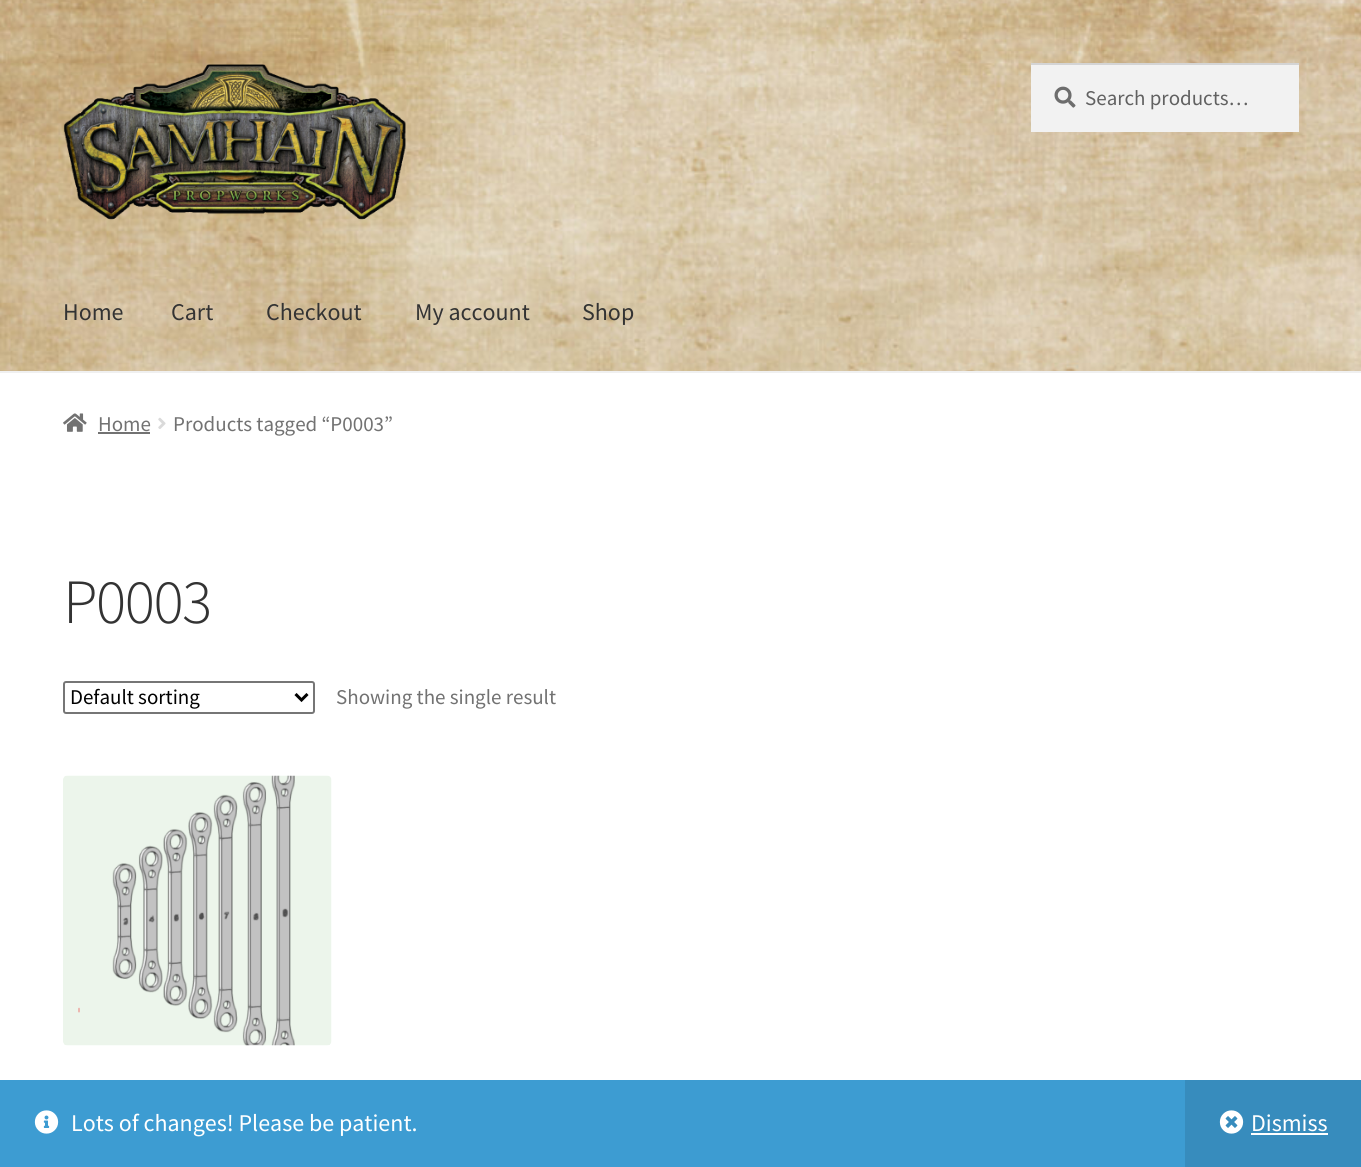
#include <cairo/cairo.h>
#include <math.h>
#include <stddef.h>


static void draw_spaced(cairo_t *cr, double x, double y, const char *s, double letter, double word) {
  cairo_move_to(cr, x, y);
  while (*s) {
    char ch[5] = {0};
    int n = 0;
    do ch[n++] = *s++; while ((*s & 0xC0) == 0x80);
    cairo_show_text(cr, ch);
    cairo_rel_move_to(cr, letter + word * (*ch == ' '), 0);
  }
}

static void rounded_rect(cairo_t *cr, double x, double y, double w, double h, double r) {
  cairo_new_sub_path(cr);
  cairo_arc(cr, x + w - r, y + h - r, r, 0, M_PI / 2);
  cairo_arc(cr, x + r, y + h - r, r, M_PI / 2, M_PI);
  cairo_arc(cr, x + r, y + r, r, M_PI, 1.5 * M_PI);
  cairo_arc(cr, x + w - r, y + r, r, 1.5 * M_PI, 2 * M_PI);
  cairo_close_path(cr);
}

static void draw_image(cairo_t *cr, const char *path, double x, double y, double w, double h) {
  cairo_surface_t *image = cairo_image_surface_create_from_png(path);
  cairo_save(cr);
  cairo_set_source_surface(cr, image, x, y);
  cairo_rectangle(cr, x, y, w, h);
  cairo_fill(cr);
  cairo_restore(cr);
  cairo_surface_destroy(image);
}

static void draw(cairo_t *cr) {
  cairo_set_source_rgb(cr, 1, 1, 1);
  cairo_paint(cr);
  draw_image(cr, "images/1.png", 0, 0, 1361, 371);
  cairo_set_source_rgb(cr, 240 / 255.0, 240 / 255.0, 240 / 255.0);
  cairo_rectangle(cr, 0, 371, 1361, 2);
  cairo_fill(cr);
  draw_image(cr, "images/2.png", 63, 64, 343, 156);
  cairo_set_source_rgb(cr, 242 / 255.0, 242 / 255.0, 242 / 255.0);
  cairo_rectangle(cr, 1031, 65, 268, 67);
  cairo_fill(cr);
  draw_image(cr, "images/3.png", 1054, 86, 22, 22);
  cairo_set_source_rgb(cr, 212 / 255.0, 212 / 255.0, 212 / 255.0);
  cairo_rectangle(cr, 1031, 63, 268, 2);
  cairo_fill(cr);
  draw_image(cr, "images/4.png", 63, 413, 24, 19);
  cairo_set_source_rgb(cr, 114 / 255.0, 114 / 255.0, 114 / 255.0);
  cairo_rectangle(cr, 98, 432, 52, 2);
  cairo_fill(cr);
  draw_image(cr, "images/5.png", 158, 417, 8, 12);
  rounded_rect(cr, 64, 682, 250, 31, 2);
  cairo_set_source_rgb(cr, 118 / 255.0, 118 / 255.0, 118 / 255.0);
  cairo_stroke(cr);
  cairo_new_path(cr);
  cairo_move_to(cr, 295.5, 694);
  cairo_line_to(cr, 301.5, 700);
  cairo_line_to(cr, 307.5, 694);
  cairo_set_source_rgb(cr, 0, 0, 0);
  cairo_set_line_width(cr, 3);
  cairo_stroke(cr);
  draw_image(cr, "images/6.png", 63, 775, 269, 271);
  cairo_set_source_rgb(cr, 61 / 255.0, 156 / 255.0, 210 / 255.0);
  cairo_rectangle(cr, 0, 1080, 1185, 87);
  cairo_fill(cr);
  draw_image(cr, "images/7.png", 34, 1110, 25, 24);
  cairo_set_source_rgb(cr, 55 / 255.0, 140 / 255.0, 189 / 255.0);
  cairo_rectangle(cr, 1185, 1080, 176, 87);
  cairo_fill(cr);
  draw_image(cr, "images/8.png", 1219, 1110, 25, 24);
  cairo_set_source_rgb(cr, 1, 1, 1);
  cairo_rectangle(cr, 1251, 1133, 77, 2);
  cairo_fill(cr);
  cairo_select_font_face(cr, "Source Sans Pro", CAIRO_FONT_SLANT_NORMAL, CAIRO_FONT_WEIGHT_NORMAL);
  cairo_set_font_size(cr, 21);
  cairo_set_source_rgb(cr, 97 / 255.0, 97 / 255.0, 97 / 255.0);
  cairo_move_to(cr, 1085, 105);
  cairo_show_text(cr, "Search products…");
  cairo_set_font_size(cr, 24);
  cairo_set_source_rgb(cr, 51 / 255.0, 51 / 255.0, 51 / 255.0);
  cairo_move_to(cr, 63, 320);
  cairo_show_text(cr, "Home");
  cairo_move_to(cr, 171, 320);
  cairo_show_text(cr, "Cart");
  cairo_move_to(cr, 266, 320);
  cairo_show_text(cr, "Checkout");
  cairo_move_to(cr, 415, 320);
  cairo_show_text(cr, "My account");
  cairo_move_to(cr, 582, 320);
  cairo_show_text(cr, "Shop");
  cairo_set_font_size(cr, 21);
  cairo_set_source_rgb(cr, 114 / 255.0, 114 / 255.0, 114 / 255.0);
  cairo_move_to(cr, 98, 431);
  cairo_show_text(cr, "Home");
  cairo_move_to(cr, 173, 431);
  cairo_show_text(cr, "Products tagged “P0003”");
  cairo_select_font_face(cr, "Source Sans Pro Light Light", CAIRO_FONT_SLANT_NORMAL, CAIRO_FONT_WEIGHT_NORMAL);
  cairo_set_font_size(cr, 63);
  cairo_set_source_rgb(cr, 51 / 255.0, 51 / 255.0, 51 / 255.0);
  draw_spaced(cr, 63, 623, "P0003", -1.5, 0);
  cairo_select_font_face(cr, "Source Sans Pro", CAIRO_FONT_SLANT_NORMAL, CAIRO_FONT_WEIGHT_NORMAL);
  cairo_set_font_size(cr, 21);
  cairo_set_source_rgb(cr, 0, 0, 0);
  cairo_move_to(cr, 70, 704);
  cairo_show_text(cr, "Default sorting");
  cairo_set_source_rgb(cr, 114 / 255.0, 114 / 255.0, 114 / 255.0);
  cairo_move_to(cr, 336, 704);
  cairo_show_text(cr, "Showing the single result");
  cairo_set_font_size(cr, 24);
  cairo_set_source_rgb(cr, 1, 1, 1);
  cairo_move_to(cr, 71, 1131);
  cairo_show_text(cr, "Lots of changes! Please be patient.");
  cairo_move_to(cr, 1251, 1131);
  cairo_show_text(cr, "Dismiss");
}

int main(void) {
  cairo_surface_t *surface = cairo_image_surface_create(CAIRO_FORMAT_RGB24, 1361, 1167);
  cairo_t *cr = cairo_create(surface);
  cairo_font_options_t *options = cairo_font_options_create();
  cairo_font_options_set_hint_metrics(options, CAIRO_HINT_METRICS_OFF);
  cairo_font_options_set_hint_style(options, CAIRO_HINT_STYLE_NONE);
  cairo_set_font_options(cr, options);
  cairo_set_miter_limit(cr, 4);
  draw(cr);
  cairo_surface_write_to_png(surface, "out.png");
  cairo_font_options_destroy(options);
  cairo_destroy(cr);
  cairo_surface_destroy(surface);
  return 0;
}
